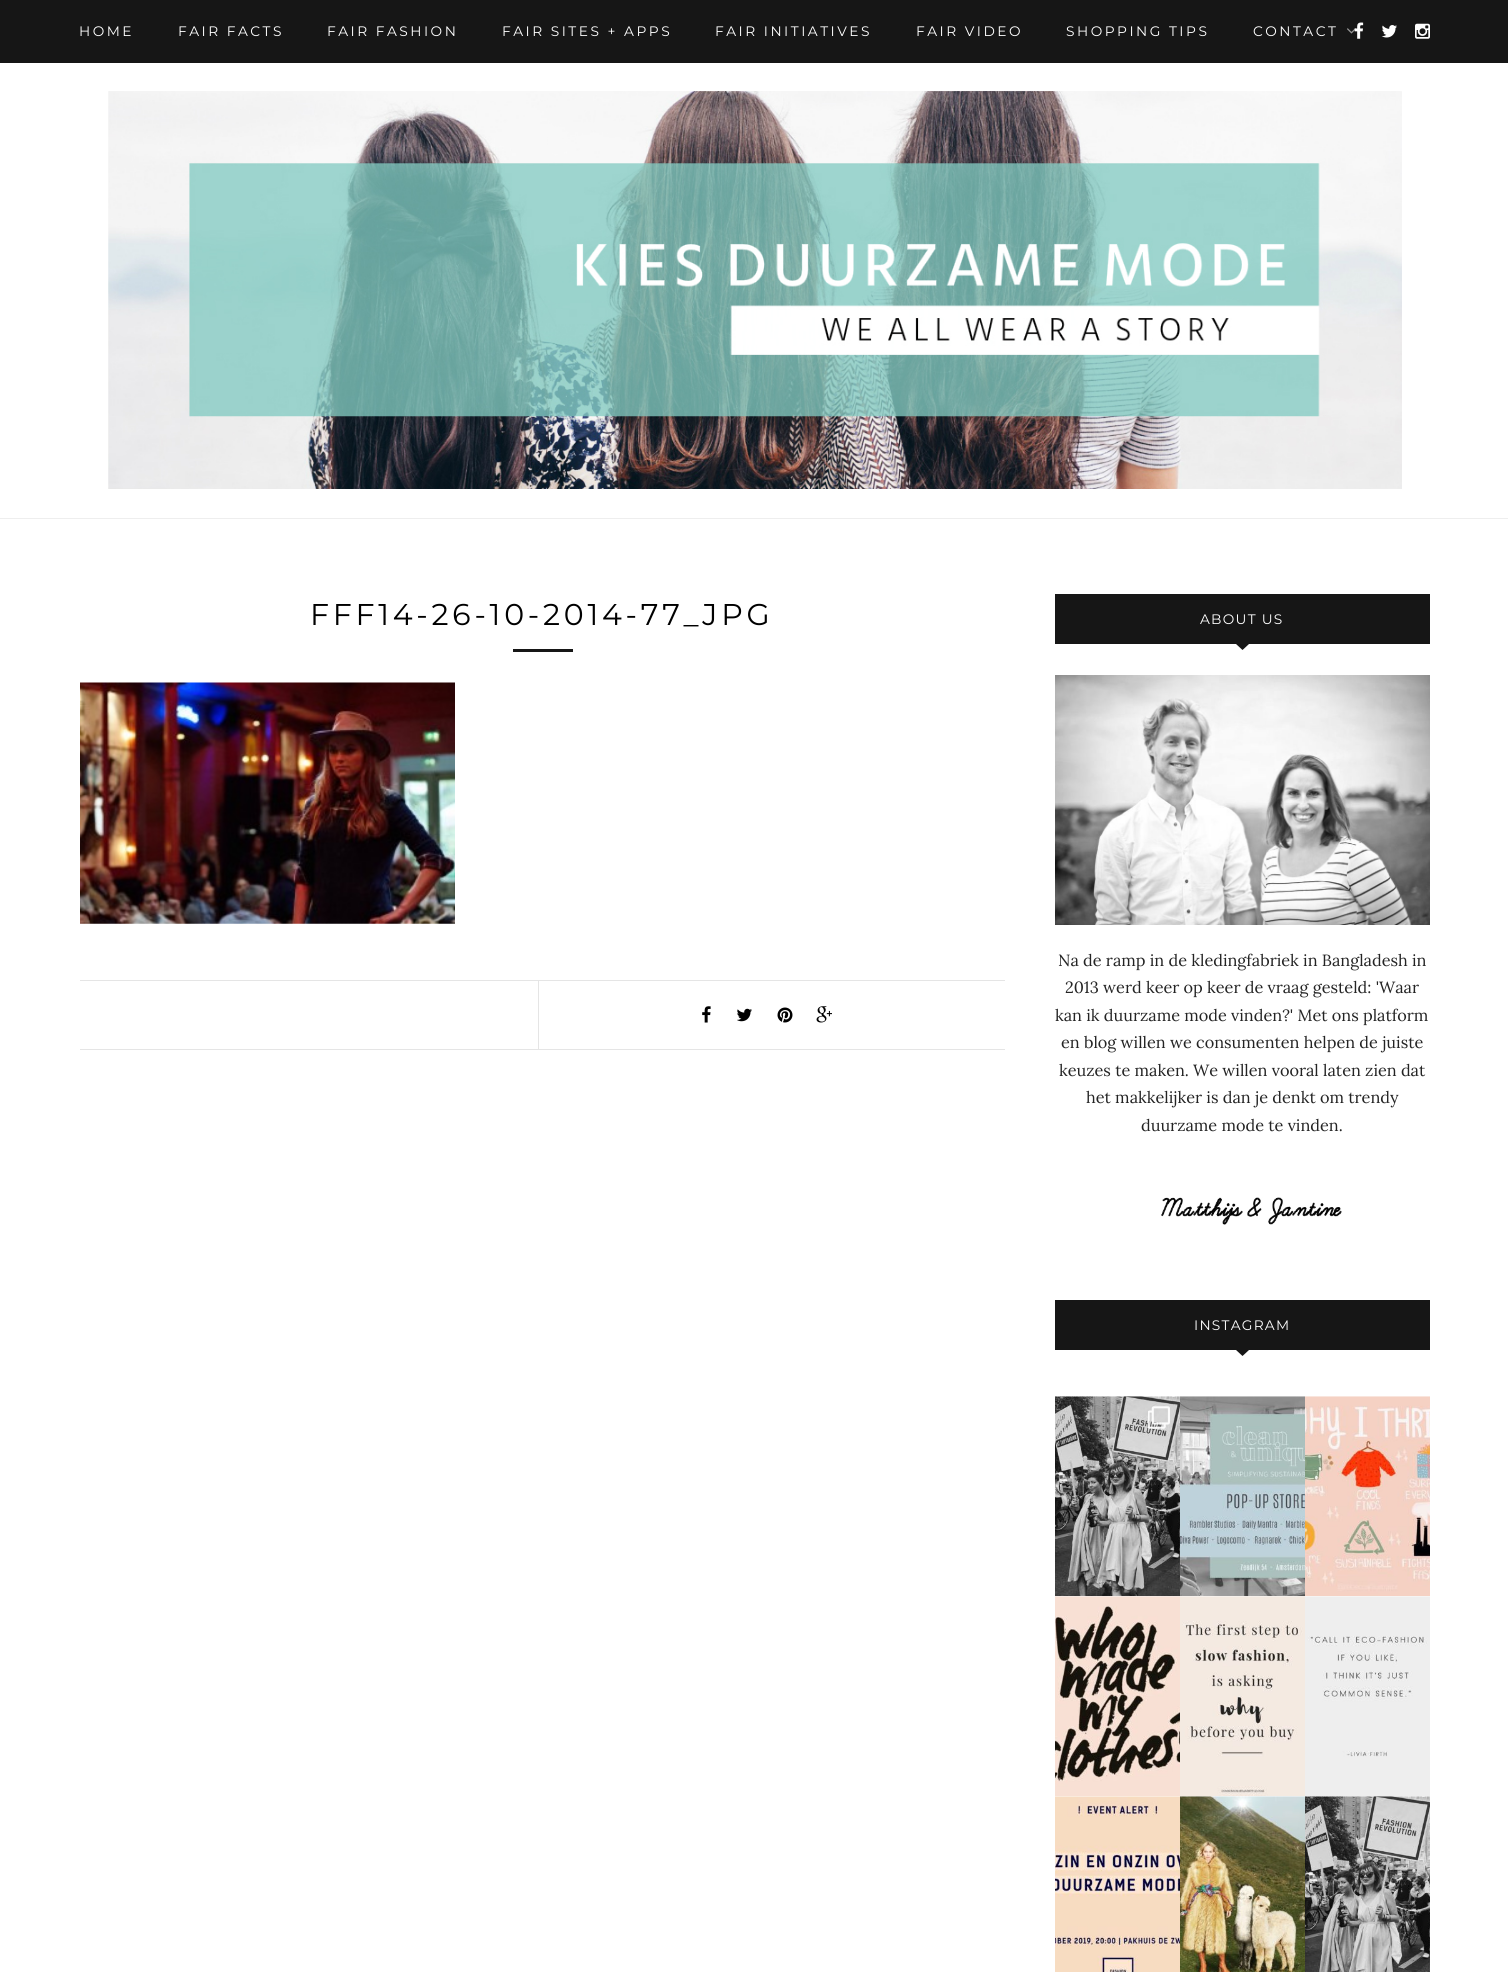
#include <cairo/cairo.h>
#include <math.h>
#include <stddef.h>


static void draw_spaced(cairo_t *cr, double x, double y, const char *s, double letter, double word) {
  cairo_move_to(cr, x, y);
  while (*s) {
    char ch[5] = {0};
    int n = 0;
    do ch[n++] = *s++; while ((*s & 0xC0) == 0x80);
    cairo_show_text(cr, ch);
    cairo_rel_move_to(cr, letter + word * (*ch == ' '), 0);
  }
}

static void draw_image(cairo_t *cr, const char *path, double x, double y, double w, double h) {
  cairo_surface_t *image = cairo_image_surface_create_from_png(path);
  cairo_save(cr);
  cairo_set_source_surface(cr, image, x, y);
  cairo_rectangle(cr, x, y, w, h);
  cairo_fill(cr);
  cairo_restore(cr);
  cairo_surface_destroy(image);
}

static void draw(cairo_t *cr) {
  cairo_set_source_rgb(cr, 1, 1, 1);
  cairo_paint(cr);
  cairo_set_source_rgb(cr, 22 / 255.0, 22 / 255.0, 22 / 255.0);
  cairo_rectangle(cr, 0, 0, 1508, 63);
  cairo_fill(cr);
  draw_image(cr, "images/1.png", 1347, 28, 9, 6);
  draw_image(cr, "images/2.png", 1354, 22, 10, 17);
  draw_image(cr, "images/3.png", 1381, 25, 16, 13);
  draw_image(cr, "images/4.png", 1415, 23, 15, 16);
  cairo_set_source_rgb(cr, 238 / 255.0, 238 / 255.0, 238 / 255.0);
  cairo_rectangle(cr, 0, 518, 1508, 1);
  cairo_fill(cr);
  draw_image(cr, "images/5.png", 108, 91, 1294, 398);
  cairo_set_source_rgb(cr, 22 / 255.0, 22 / 255.0, 22 / 255.0);
  cairo_rectangle(cr, 513, 649, 60, 3);
  cairo_fill(cr);
  draw_image(cr, "images/6.png", 80, 682, 375, 242);
  cairo_set_source_rgb(cr, 229 / 255.0, 229 / 255.0, 229 / 255.0);
  cairo_rectangle(cr, 80, 980, 925, 1);
  cairo_fill(cr);
  cairo_rectangle(cr, 80, 1049, 925, 1);
  cairo_fill(cr);
  cairo_rectangle(cr, 538, 981, 1, 68);
  cairo_fill(cr);
  draw_image(cr, "images/7.png", 702, 1006, 9, 17);
  draw_image(cr, "images/8.png", 737, 1008, 15, 14);
  draw_image(cr, "images/9.png", 777, 1007, 16, 16);
  draw_image(cr, "images/10.png", 816, 1006, 16, 17);
  cairo_set_source_rgb(cr, 22 / 255.0, 22 / 255.0, 22 / 255.0);
  cairo_rectangle(cr, 1055, 594, 375, 50);
  cairo_fill(cr);
  cairo_new_path(cr);
  cairo_move_to(cr, 1236, 644);
  cairo_line_to(cr, 1249, 644);
  cairo_line_to(cr, 1242.5, 650);
  cairo_close_path(cr);
  cairo_fill(cr);
  draw_image(cr, "images/11.png", 1055, 675, 375, 250);
  draw_image(cr, "images/12.png", 1161, 1197, 181, 28);
  cairo_rectangle(cr, 1055, 1300, 375, 50);
  cairo_fill(cr);
  cairo_new_path(cr);
  cairo_move_to(cr, 1236, 1350);
  cairo_line_to(cr, 1249, 1350);
  cairo_line_to(cr, 1242.5, 1356);
  cairo_close_path(cr);
  cairo_fill(cr);
  draw_image(cr, "images/13.png", 1055, 1396, 125, 201);
  draw_image(cr, "images/14.png", 1148, 1406, 22, 23);
  draw_image(cr, "images/15.png", 1180, 1396, 125, 201);
  draw_image(cr, "images/16.png", 1305, 1396, 125, 201);
  draw_image(cr, "images/17.png", 1055, 1596, 125, 200);
  draw_image(cr, "images/18.png", 1180, 1596, 125, 200);
  draw_image(cr, "images/19.png", 1305, 1596, 125, 200);
  draw_image(cr, "images/20.png", 1055, 1796, 125, 176);
  draw_image(cr, "images/21.png", 1180, 1796, 125, 176);
  draw_image(cr, "images/22.png", 1305, 1796, 125, 176);
  cairo_select_font_face(cr, "Montserrat", CAIRO_FONT_SLANT_NORMAL, CAIRO_FONT_WEIGHT_NORMAL);
  cairo_set_font_size(cr, 13.75);
  cairo_set_source_rgb(cr, 1, 1, 1);
  draw_spaced(cr, 79, 36, "HOME", 2.5, 0);
  draw_spaced(cr, 178, 36, "FAIR FACTS", 2.5, 0);
  draw_spaced(cr, 327, 36, "FAIR FASHION", 2.5, 0);
  draw_spaced(cr, 502, 36, "FAIR SITES + APPS", 2.5, 0);
  draw_spaced(cr, 715, 36, "FAIR INITIATIVES", 2.5, 0);
  draw_spaced(cr, 916, 36, "FAIR VIDEO", 2.5, 0);
  draw_spaced(cr, 1066, 36, "SHOPPING TIPS", 2.5, 0);
  draw_spaced(cr, 1253, 36, "CONTACT", 2.5, 0);
  cairo_set_font_size(cr, 30);
  cairo_set_source_rgb(cr, 0, 0, 0);
  draw_spaced(cr, 310, 625, "FFF14-26-10-2014-77_JPG", 3.75, 0);
  cairo_set_font_size(cr, 13.75);
  cairo_set_source_rgb(cr, 1, 1, 1);
  draw_spaced(cr, 1200, 624, "ABOUT US", 1.25, 0);
  cairo_select_font_face(cr, "Lora", CAIRO_FONT_SLANT_NORMAL, CAIRO_FONT_WEIGHT_NORMAL);
  cairo_set_font_size(cr, 16.25);
  cairo_set_source_rgb(cr, 36 / 255.0, 36 / 255.0, 36 / 255.0);
  cairo_move_to(cr, 1058, 966);
  cairo_show_text(cr, "Na de ramp in de kledingfabriek in Bangladesh in");
  cairo_move_to(cr, 1065, 993);
  cairo_show_text(cr, "2013 werd keer op keer de vraag gesteld: 'Waar");
  cairo_move_to(cr, 1055, 1021);
  cairo_show_text(cr, "kan ik duurzame mode vinden?' Met ons platform");
  cairo_move_to(cr, 1061, 1048);
  cairo_show_text(cr, "en blog willen we consumenten helpen de juiste");
  cairo_move_to(cr, 1059, 1076);
  cairo_show_text(cr, "keuzes te maken. We willen vooral laten zien dat");
  cairo_move_to(cr, 1086, 1103);
  cairo_show_text(cr, "het makkelijker is dan je denkt om trendy");
  cairo_move_to(cr, 1141, 1131);
  cairo_show_text(cr, "duurzame mode te vinden.");
  cairo_select_font_face(cr, "Montserrat", CAIRO_FONT_SLANT_NORMAL, CAIRO_FONT_WEIGHT_NORMAL);
  cairo_set_font_size(cr, 13.75);
  cairo_set_source_rgb(cr, 1, 1, 1);
  draw_spaced(cr, 1194, 1330, "INSTAGRAM", 1.25, 0);
}

int main(void) {
  cairo_surface_t *surface = cairo_image_surface_create(CAIRO_FORMAT_RGB24, 1508, 1972);
  cairo_t *cr = cairo_create(surface);
  cairo_font_options_t *options = cairo_font_options_create();
  cairo_font_options_set_hint_metrics(options, CAIRO_HINT_METRICS_OFF);
  cairo_font_options_set_hint_style(options, CAIRO_HINT_STYLE_NONE);
  cairo_set_font_options(cr, options);
  cairo_set_miter_limit(cr, 4);
  draw(cr);
  cairo_surface_write_to_png(surface, "out.png");
  cairo_font_options_destroy(options);
  cairo_destroy(cr);
  cairo_surface_destroy(surface);
  return 0;
}
